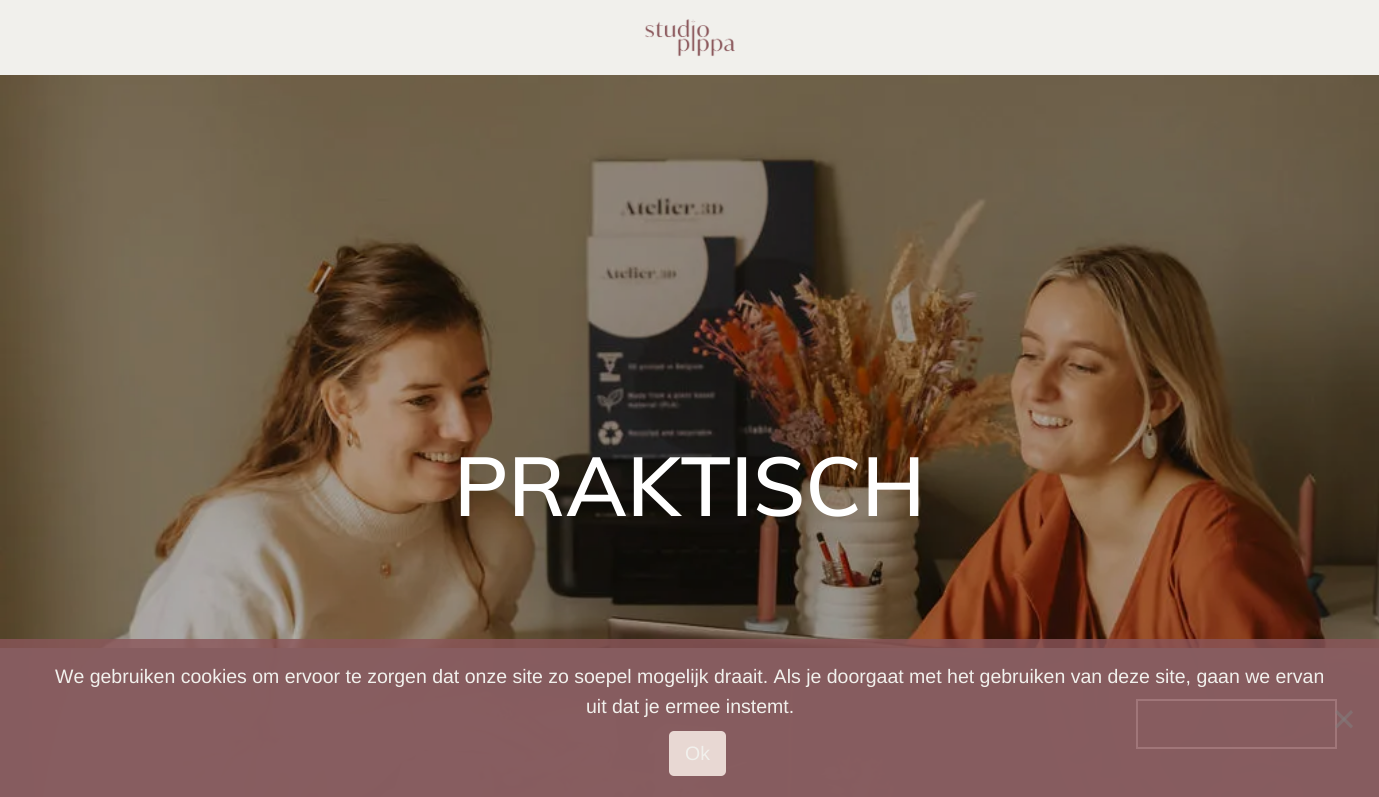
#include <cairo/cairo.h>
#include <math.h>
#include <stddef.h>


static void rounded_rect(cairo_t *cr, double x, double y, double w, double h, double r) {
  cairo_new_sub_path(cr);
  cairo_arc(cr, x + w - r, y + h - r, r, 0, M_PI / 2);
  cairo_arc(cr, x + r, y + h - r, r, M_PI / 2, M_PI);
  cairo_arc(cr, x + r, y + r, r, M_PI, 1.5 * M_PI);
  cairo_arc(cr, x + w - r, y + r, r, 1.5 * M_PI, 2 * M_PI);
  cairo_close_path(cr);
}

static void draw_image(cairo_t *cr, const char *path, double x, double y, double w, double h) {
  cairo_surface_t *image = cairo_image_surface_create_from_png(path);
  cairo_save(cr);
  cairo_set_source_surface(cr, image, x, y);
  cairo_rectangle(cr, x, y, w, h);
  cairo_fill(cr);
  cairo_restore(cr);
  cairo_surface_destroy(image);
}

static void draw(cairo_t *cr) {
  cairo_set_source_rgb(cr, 241 / 255.0, 240 / 255.0, 236 / 255.0);
  cairo_paint(cr);
  draw_image(cr, "images/1.png", 645, 19, 90, 38);
  draw_image(cr, "images/2.png", 0, 75, 1379, 722);
  cairo_set_source_rgba(cr, 124 / 255.0, 124 / 255.0, 124 / 255.0, 0.97);
  cairo_rectangle(cr, 0, 648, 1379, 149);
  cairo_fill(cr);
  cairo_rectangle(cr, 1137, 700, 199, 48);
  cairo_set_source_rgba(cr, 1, 1, 1, 0.97);
  cairo_stroke(cr);
  cairo_set_source_rgba(cr, 137 / 255.0, 85 / 255.0, 89 / 255.0, 0.8);
  cairo_rectangle(cr, 0, 639, 1379, 158);
  cairo_fill(cr);
  cairo_set_source_rgba(cr, 128 / 255.0, 128 / 255.0, 128 / 255.0, 0.5);
  cairo_new_path(cr);
  cairo_move_to(cr, 1351, 710);
  cairo_line_to(cr, 1353, 712.5);
  cairo_line_to(cr, 1337, 728.5);
  cairo_line_to(cr, 1335, 726);
  cairo_close_path(cr);
  cairo_fill(cr);
  cairo_new_path(cr);
  cairo_move_to(cr, 1335, 712.5);
  cairo_line_to(cr, 1337, 710);
  cairo_line_to(cr, 1353, 726);
  cairo_line_to(cr, 1351, 728.5);
  cairo_close_path(cr);
  cairo_fill(cr);
  cairo_set_source_rgb(cr, 232 / 255.0, 216 / 255.0, 211 / 255.0);
  rounded_rect(cr, 669, 731, 57, 45, 5);
  cairo_fill(cr);
  cairo_select_font_face(cr, "Muli SemiBold", CAIRO_FONT_SLANT_NORMAL, CAIRO_FONT_WEIGHT_NORMAL);
  cairo_set_font_size(cr, 82.5);
  cairo_set_source_rgb(cr, 1, 1, 1);
  cairo_move_to(cr, 454, 516);
  cairo_show_text(cr, "PRAKTISCH");
  cairo_select_font_face(cr, "Liberation Sans", CAIRO_FONT_SLANT_NORMAL, CAIRO_FONT_WEIGHT_NORMAL);
  cairo_set_font_size(cr, 19.5);
  cairo_set_source_rgb(cr, 241 / 255.0, 240 / 255.0, 236 / 255.0);
  cairo_move_to(cr, 55, 683);
  cairo_show_text(cr, "We gebruiken cookies om ervoor te zorgen dat onze site zo soepel mogelijk draait. Als je doorgaat met het gebruiken van deze site, gaan we ervan");
  cairo_move_to(cr, 586, 713);
  cairo_show_text(cr, "uit dat je ermee instemt.");
  cairo_move_to(cr, 685, 760);
  cairo_show_text(cr, "Ok");
}

int main(void) {
  cairo_surface_t *surface = cairo_image_surface_create(CAIRO_FORMAT_RGB24, 1379, 797);
  cairo_t *cr = cairo_create(surface);
  cairo_font_options_t *options = cairo_font_options_create();
  cairo_font_options_set_hint_metrics(options, CAIRO_HINT_METRICS_OFF);
  cairo_font_options_set_hint_style(options, CAIRO_HINT_STYLE_NONE);
  cairo_set_font_options(cr, options);
  cairo_set_miter_limit(cr, 4);
  draw(cr);
  cairo_surface_write_to_png(surface, "out.png");
  cairo_font_options_destroy(options);
  cairo_destroy(cr);
  cairo_surface_destroy(surface);
  return 0;
}
